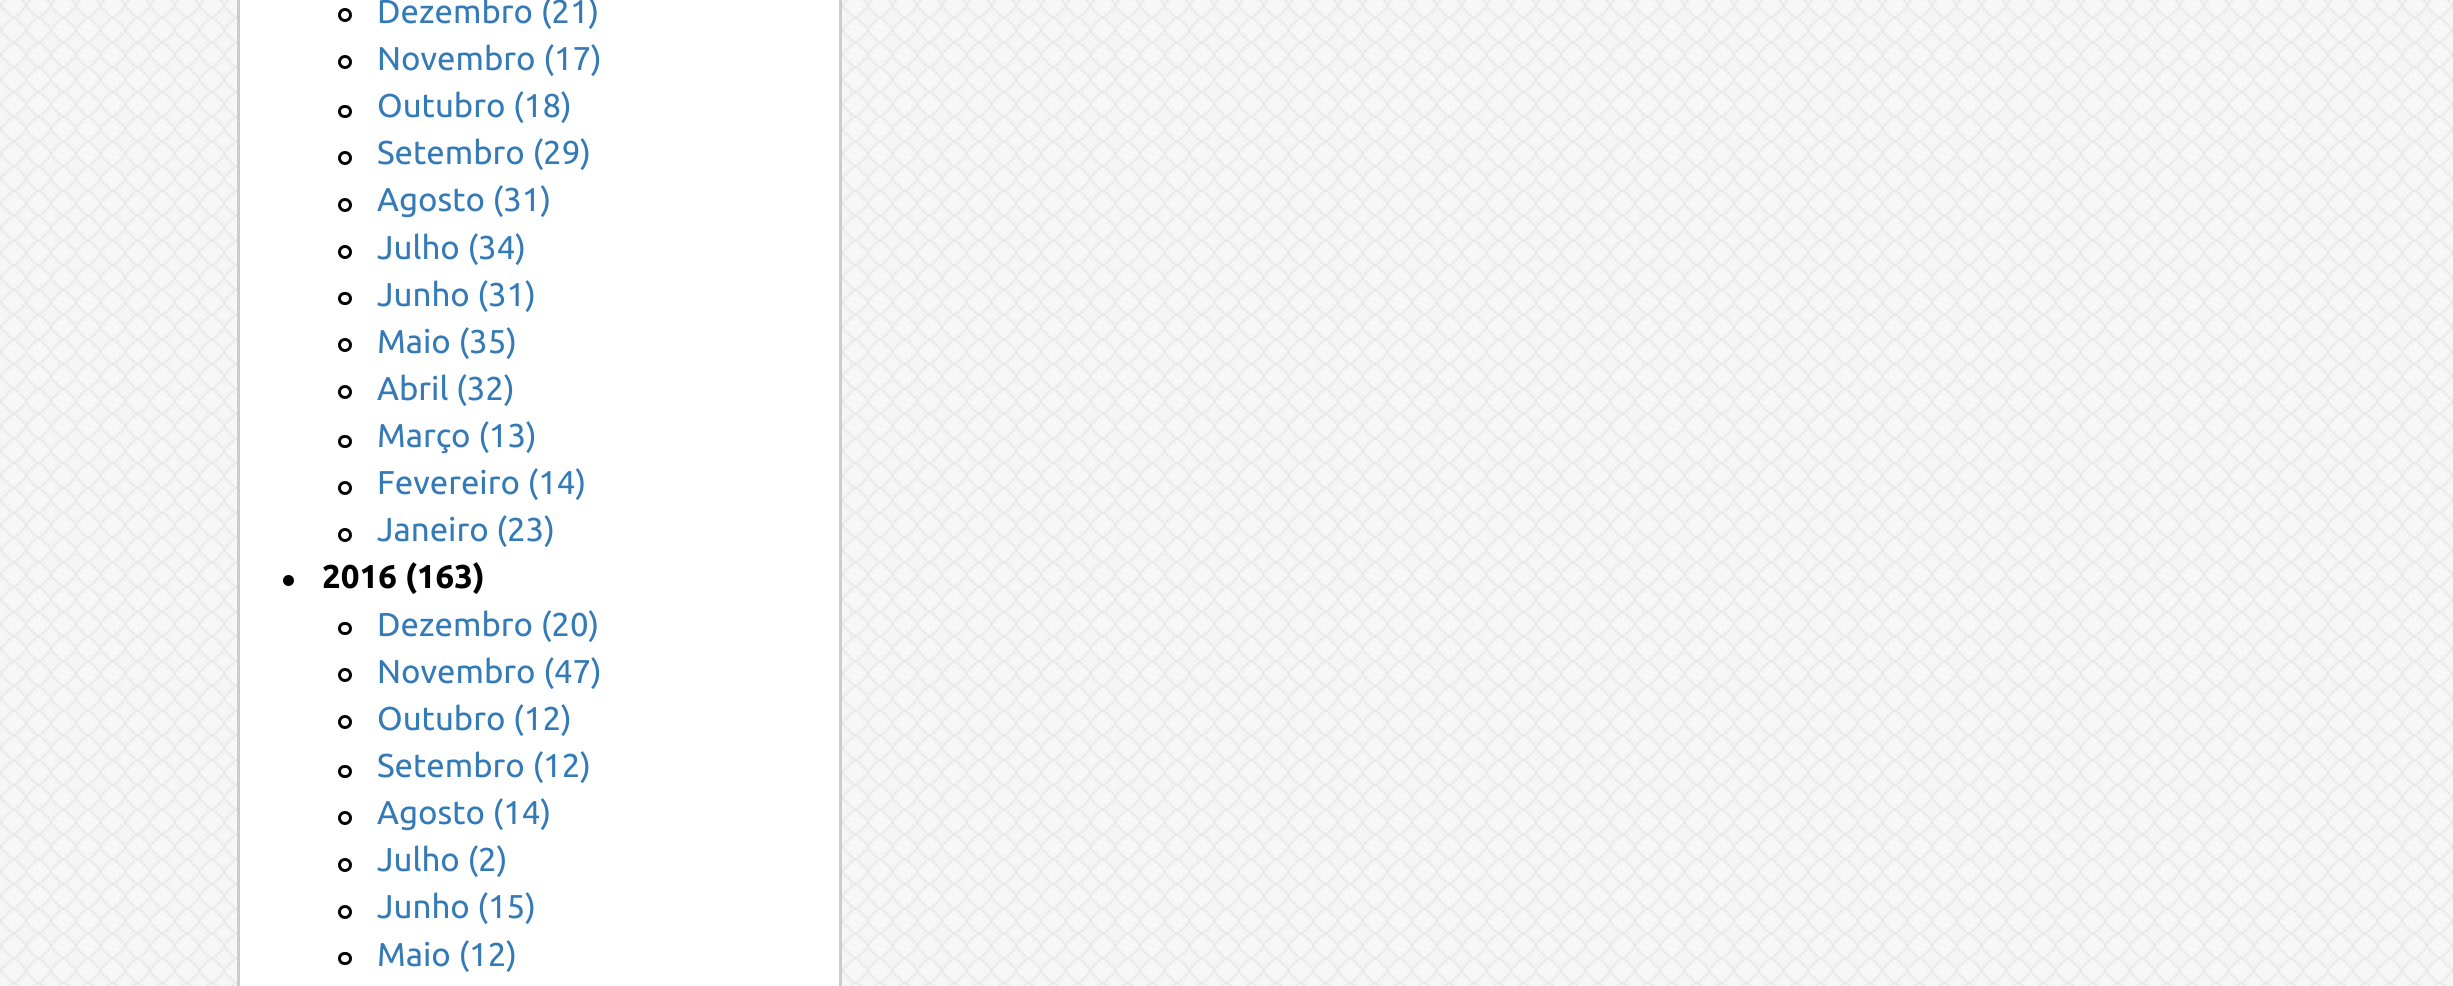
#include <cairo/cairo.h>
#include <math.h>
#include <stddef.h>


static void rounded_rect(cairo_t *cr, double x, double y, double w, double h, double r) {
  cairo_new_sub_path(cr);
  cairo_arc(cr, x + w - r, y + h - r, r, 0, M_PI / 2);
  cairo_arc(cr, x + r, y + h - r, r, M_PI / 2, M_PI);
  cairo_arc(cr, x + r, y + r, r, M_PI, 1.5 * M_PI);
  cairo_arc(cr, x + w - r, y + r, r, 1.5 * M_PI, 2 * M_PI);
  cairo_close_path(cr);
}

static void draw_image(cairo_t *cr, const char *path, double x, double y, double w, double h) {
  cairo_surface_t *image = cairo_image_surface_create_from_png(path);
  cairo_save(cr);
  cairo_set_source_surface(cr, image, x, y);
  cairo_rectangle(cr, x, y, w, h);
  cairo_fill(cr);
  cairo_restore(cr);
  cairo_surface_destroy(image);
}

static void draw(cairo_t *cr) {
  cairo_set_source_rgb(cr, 248 / 255.0, 248 / 255.0, 248 / 255.0);
  cairo_paint(cr);
  draw_image(cr, "images/1.png", 0, 0, 2453, 986);
  cairo_set_source_rgb(cr, 1, 1, 1);
  cairo_rectangle(cr, 238.5, -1.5, 602, 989);
  cairo_fill_preserve(cr);
  cairo_set_source_rgb(cr, 204 / 255.0, 204 / 255.0, 204 / 255.0);
  cairo_set_line_width(cr, 3);
  cairo_stroke(cr);
  cairo_arc(cr, 345, 15, 5.5, 0, 2 * M_PI);
  cairo_set_source_rgb(cr, 0, 0, 0);
  cairo_stroke(cr);
  cairo_arc(cr, 345, 62, 5.5, 0, 2 * M_PI);
  cairo_stroke(cr);
  rounded_rect(cr, 339.5, 106.5, 11, 10, 5);
  cairo_stroke(cr);
  cairo_arc(cr, 345, 158, 5.5, 0, 2 * M_PI);
  cairo_stroke(cr);
  cairo_arc(cr, 345, 205, 5.5, 0, 2 * M_PI);
  cairo_stroke(cr);
  cairo_arc(cr, 345, 252, 5.5, 0, 2 * M_PI);
  cairo_stroke(cr);
  rounded_rect(cr, 339.5, 293.5, 11, 10, 5);
  cairo_stroke(cr);
  cairo_arc(cr, 345, 345, 5.5, 0, 2 * M_PI);
  cairo_stroke(cr);
  cairo_arc(cr, 345, 392, 5.5, 0, 2 * M_PI);
  cairo_stroke(cr);
  rounded_rect(cr, 339.5, 436.5, 11, 10, 5);
  cairo_stroke(cr);
  cairo_arc(cr, 345, 488, 5.5, 0, 2 * M_PI);
  cairo_stroke(cr);
  cairo_arc(cr, 345, 535, 5.5, 0, 2 * M_PI);
  cairo_stroke(cr);
  cairo_arc(cr, 288.5, 580.5, 5.5, 0, 2 * M_PI);
  cairo_fill(cr);
  rounded_rect(cr, 339.5, 623.5, 11, 10, 5);
  cairo_stroke(cr);
  cairo_arc(cr, 345, 675, 5.5, 0, 2 * M_PI);
  cairo_stroke(cr);
  cairo_arc(cr, 345, 722, 5.5, 0, 2 * M_PI);
  cairo_stroke(cr);
  rounded_rect(cr, 339.5, 766.5, 11, 10, 5);
  cairo_stroke(cr);
  cairo_arc(cr, 345, 818, 5.5, 0, 2 * M_PI);
  cairo_stroke(cr);
  cairo_arc(cr, 345, 865, 5.5, 0, 2 * M_PI);
  cairo_stroke(cr);
  cairo_arc(cr, 345, 912, 5.5, 0, 2 * M_PI);
  cairo_stroke(cr);
  rounded_rect(cr, 339.5, 953.5, 11, 10, 5);
  cairo_stroke(cr);
  cairo_select_font_face(cr, "Ubuntu", CAIRO_FONT_SLANT_NORMAL, CAIRO_FONT_WEIGHT_NORMAL);
  cairo_set_font_size(cr, 33);
  cairo_set_source_rgb(cr, 51 / 255.0, 122 / 255.0, 183 / 255.0);
  cairo_move_to(cr, 377, 23);
  cairo_show_text(cr, "Dezembro (21)");
  cairo_move_to(cr, 377, 70);
  cairo_show_text(cr, "Novembro (17)");
  cairo_move_to(cr, 377, 117);
  cairo_show_text(cr, "Outubro (18)");
  cairo_move_to(cr, 377, 164);
  cairo_show_text(cr, "Setembro (29)");
  cairo_move_to(cr, 377, 211);
  cairo_show_text(cr, "Agosto (31)");
  cairo_move_to(cr, 377, 259);
  cairo_show_text(cr, "Julho (34)");
  cairo_move_to(cr, 377, 306);
  cairo_show_text(cr, "Junho (31)");
  cairo_move_to(cr, 377, 353);
  cairo_show_text(cr, "Maio (35)");
  cairo_move_to(cr, 377, 400);
  cairo_show_text(cr, "Abril (32)");
  cairo_move_to(cr, 377, 447);
  cairo_show_text(cr, "Março (13)");
  cairo_move_to(cr, 377, 494);
  cairo_show_text(cr, "Fevereiro (14)");
  cairo_move_to(cr, 377, 541);
  cairo_show_text(cr, "Janeiro (23)");
  cairo_select_font_face(cr, "Ubuntu", CAIRO_FONT_SLANT_NORMAL, CAIRO_FONT_WEIGHT_BOLD);
  cairo_set_source_rgb(cr, 0, 0, 0);
  cairo_move_to(cr, 322, 588);
  cairo_show_text(cr, "2016 (163)");
  cairo_select_font_face(cr, "Ubuntu", CAIRO_FONT_SLANT_NORMAL, CAIRO_FONT_WEIGHT_NORMAL);
  cairo_set_source_rgb(cr, 51 / 255.0, 122 / 255.0, 183 / 255.0);
  cairo_move_to(cr, 377, 636);
  cairo_show_text(cr, "Dezembro (20)");
  cairo_move_to(cr, 377, 683);
  cairo_show_text(cr, "Novembro (47)");
  cairo_move_to(cr, 377, 730);
  cairo_show_text(cr, "Outubro (12)");
  cairo_move_to(cr, 377, 777);
  cairo_show_text(cr, "Setembro (12)");
  cairo_move_to(cr, 377, 824);
  cairo_show_text(cr, "Agosto (14)");
  cairo_move_to(cr, 377, 871);
  cairo_show_text(cr, "Julho (2)");
  cairo_move_to(cr, 377, 918);
  cairo_show_text(cr, "Junho (15)");
  cairo_move_to(cr, 377, 966);
  cairo_show_text(cr, "Maio (12)");
}

int main(void) {
  cairo_surface_t *surface = cairo_image_surface_create(CAIRO_FORMAT_RGB24, 2453, 986);
  cairo_t *cr = cairo_create(surface);
  cairo_font_options_t *options = cairo_font_options_create();
  cairo_font_options_set_hint_metrics(options, CAIRO_HINT_METRICS_OFF);
  cairo_font_options_set_hint_style(options, CAIRO_HINT_STYLE_NONE);
  cairo_set_font_options(cr, options);
  cairo_set_miter_limit(cr, 4);
  draw(cr);
  cairo_surface_write_to_png(surface, "out.png");
  cairo_font_options_destroy(options);
  cairo_destroy(cr);
  cairo_surface_destroy(surface);
  return 0;
}
